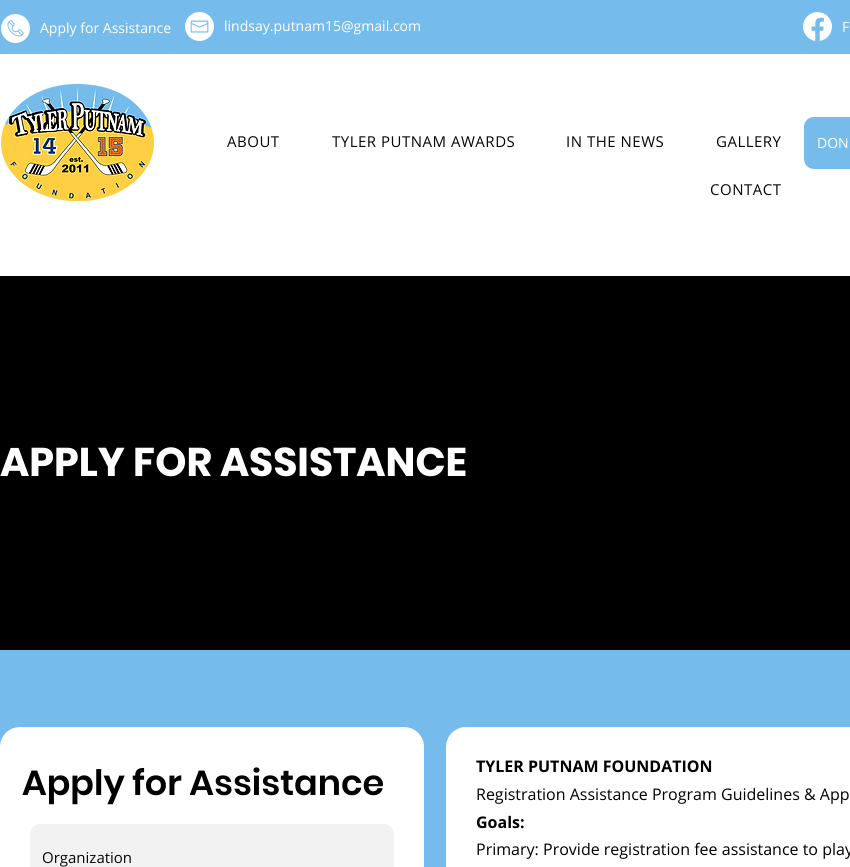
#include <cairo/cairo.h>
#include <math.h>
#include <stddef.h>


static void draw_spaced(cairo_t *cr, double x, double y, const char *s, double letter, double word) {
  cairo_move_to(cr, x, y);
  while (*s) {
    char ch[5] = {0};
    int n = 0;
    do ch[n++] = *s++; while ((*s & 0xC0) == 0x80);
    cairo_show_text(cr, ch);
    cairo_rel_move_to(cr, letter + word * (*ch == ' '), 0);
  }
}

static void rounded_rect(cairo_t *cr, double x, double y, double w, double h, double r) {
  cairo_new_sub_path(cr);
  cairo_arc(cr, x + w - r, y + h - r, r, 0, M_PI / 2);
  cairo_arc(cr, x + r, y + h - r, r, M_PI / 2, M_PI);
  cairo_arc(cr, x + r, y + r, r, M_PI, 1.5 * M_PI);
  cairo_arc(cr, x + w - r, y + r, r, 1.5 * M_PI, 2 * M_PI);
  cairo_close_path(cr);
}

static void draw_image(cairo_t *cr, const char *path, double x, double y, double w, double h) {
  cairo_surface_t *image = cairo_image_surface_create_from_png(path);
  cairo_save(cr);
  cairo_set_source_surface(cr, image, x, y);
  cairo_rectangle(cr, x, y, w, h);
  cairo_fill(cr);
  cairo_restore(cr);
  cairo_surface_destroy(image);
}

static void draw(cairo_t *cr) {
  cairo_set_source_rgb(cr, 1, 1, 1);
  cairo_paint(cr);
  cairo_set_source_rgb(cr, 117 / 255.0, 188 / 255.0, 236 / 255.0);
  cairo_rectangle(cr, 0, 0, 850, 54);
  cairo_fill(cr);
  draw_image(cr, "images/1.png", 1, 14, 29, 29);
  draw_image(cr, "images/2.png", 185, 12, 29, 29);
  draw_image(cr, "images/3.png", 803, 12, 29, 29);
  draw_image(cr, "images/4.png", 1, 84, 153, 117);
  rounded_rect(cr, 804, 117, 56, 52, 10);
  cairo_fill(cr);
  cairo_set_source_rgb(cr, 0, 0, 0);
  cairo_rectangle(cr, 0, 276, 850, 374);
  cairo_fill(cr);
  cairo_set_source_rgb(cr, 117 / 255.0, 188 / 255.0, 236 / 255.0);
  cairo_rectangle(cr, 0, 650, 850, 217);
  cairo_fill(cr);
  cairo_set_source_rgb(cr, 1, 1, 1);
  rounded_rect(cr, 0, 727, 424, 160, 20);
  cairo_fill(cr);
  cairo_set_source_rgb(cr, 242 / 255.0, 242 / 255.0, 242 / 255.0);
  rounded_rect(cr, 30, 824, 364, 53, 10);
  cairo_fill(cr);
  cairo_set_source_rgb(cr, 1, 1, 1);
  rounded_rect(cr, 446, 727, 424, 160, 20);
  cairo_fill(cr);
  cairo_select_font_face(cr, "Open Sans", CAIRO_FONT_SLANT_NORMAL, CAIRO_FONT_WEIGHT_NORMAL);
  cairo_set_font_size(cr, 14);
  cairo_move_to(cr, 40, 33);
  cairo_show_text(cr, "Apply for Assistance");
  cairo_move_to(cr, 224, 31);
  cairo_show_text(cr, "lindsay.putnam15@gmail.com");
  cairo_move_to(cr, 842, 32);
  cairo_show_text(cr, "F");
  cairo_set_font_size(cr, 15);
  cairo_set_source_rgb(cr, 7 / 255.0, 7 / 255.0, 6 / 255.0);
  draw_spaced(cr, 227, 147, "ABOUT", 0.5, 0);
  draw_spaced(cr, 332, 147, "TYLER PUTNAM AWARDS", 0.5, 0);
  draw_spaced(cr, 566, 147, "IN THE NEWS", 0.5, 0);
  draw_spaced(cr, 716, 147, "GALLERY", 0.5, 0);
  draw_spaced(cr, 710, 195, "CONTACT", 0.5, 0);
  cairo_set_font_size(cr, 14);
  cairo_set_source_rgb(cr, 1, 1, 1);
  cairo_move_to(cr, 817, 148);
  cairo_show_text(cr, "DON");
  cairo_select_font_face(cr, "Poppins", CAIRO_FONT_SLANT_NORMAL, CAIRO_FONT_WEIGHT_BOLD);
  cairo_set_font_size(cr, 40);
  cairo_move_to(cr, 0, 476);
  cairo_show_text(cr, "APPLY FOR ASSISTANCE");
  cairo_select_font_face(cr, "Poppins SemiBold", CAIRO_FONT_SLANT_NORMAL, CAIRO_FONT_WEIGHT_NORMAL);
  cairo_set_font_size(cr, 35);
  cairo_set_source_rgb(cr, 0, 0, 0);
  cairo_move_to(cr, 22, 795);
  cairo_show_text(cr, "Apply for Assistance");
  cairo_select_font_face(cr, "Open Sans", CAIRO_FONT_SLANT_NORMAL, CAIRO_FONT_WEIGHT_NORMAL);
  cairo_set_font_size(cr, 15);
  cairo_set_source_rgb(cr, 7 / 255.0, 7 / 255.0, 6 / 255.0);
  cairo_move_to(cr, 42, 863);
  cairo_show_text(cr, "Organization");
  cairo_select_font_face(cr, "Open Sans", CAIRO_FONT_SLANT_NORMAL, CAIRO_FONT_WEIGHT_BOLD);
  cairo_set_font_size(cr, 16);
  cairo_set_source_rgb(cr, 0, 0, 0);
  cairo_move_to(cr, 476, 772);
  cairo_show_text(cr, "TYLER PUTNAM FOUNDATION");
  cairo_select_font_face(cr, "Open Sans", CAIRO_FONT_SLANT_NORMAL, CAIRO_FONT_WEIGHT_NORMAL);
  cairo_move_to(cr, 476, 800);
  cairo_show_text(cr, "Registration Assistance Program Guidelines & App");
  cairo_select_font_face(cr, "Open Sans", CAIRO_FONT_SLANT_NORMAL, CAIRO_FONT_WEIGHT_BOLD);
  cairo_move_to(cr, 476, 828);
  cairo_show_text(cr, "Goals:");
  cairo_select_font_face(cr, "Open Sans", CAIRO_FONT_SLANT_NORMAL, CAIRO_FONT_WEIGHT_NORMAL);
  cairo_move_to(cr, 476, 855);
  cairo_show_text(cr, "Primary: Provide registration fee assistance to play");
}

int main(void) {
  cairo_surface_t *surface = cairo_image_surface_create(CAIRO_FORMAT_RGB24, 850, 867);
  cairo_t *cr = cairo_create(surface);
  cairo_font_options_t *options = cairo_font_options_create();
  cairo_font_options_set_hint_metrics(options, CAIRO_HINT_METRICS_OFF);
  cairo_font_options_set_hint_style(options, CAIRO_HINT_STYLE_NONE);
  cairo_set_font_options(cr, options);
  cairo_set_miter_limit(cr, 4);
  draw(cr);
  cairo_surface_write_to_png(surface, "out.png");
  cairo_font_options_destroy(options);
  cairo_destroy(cr);
  cairo_surface_destroy(surface);
  return 0;
}
